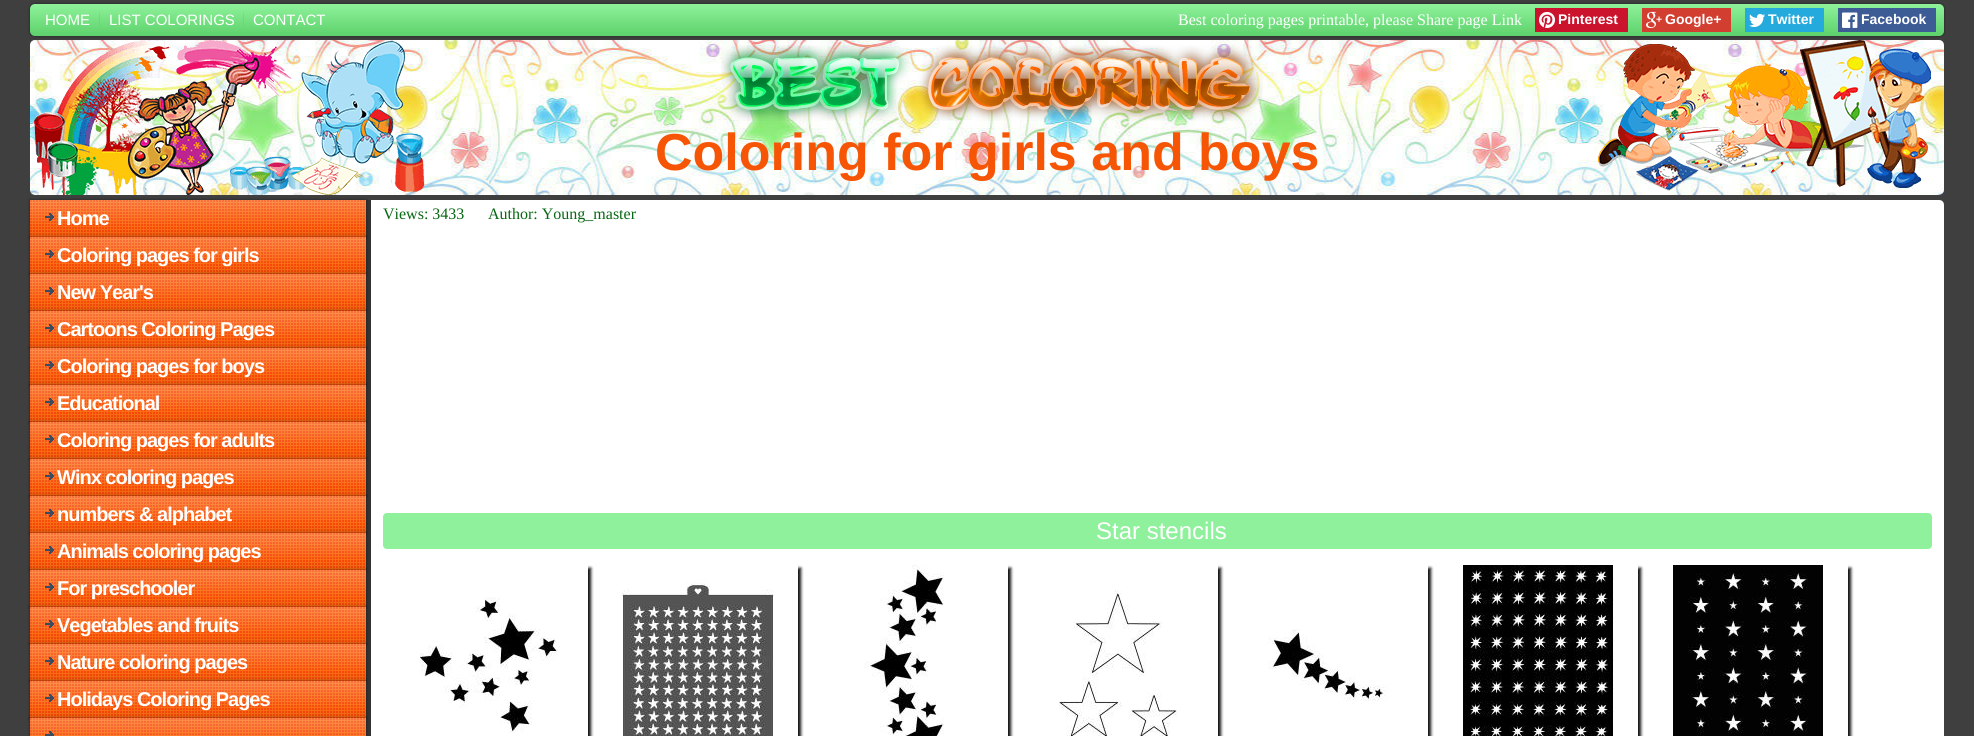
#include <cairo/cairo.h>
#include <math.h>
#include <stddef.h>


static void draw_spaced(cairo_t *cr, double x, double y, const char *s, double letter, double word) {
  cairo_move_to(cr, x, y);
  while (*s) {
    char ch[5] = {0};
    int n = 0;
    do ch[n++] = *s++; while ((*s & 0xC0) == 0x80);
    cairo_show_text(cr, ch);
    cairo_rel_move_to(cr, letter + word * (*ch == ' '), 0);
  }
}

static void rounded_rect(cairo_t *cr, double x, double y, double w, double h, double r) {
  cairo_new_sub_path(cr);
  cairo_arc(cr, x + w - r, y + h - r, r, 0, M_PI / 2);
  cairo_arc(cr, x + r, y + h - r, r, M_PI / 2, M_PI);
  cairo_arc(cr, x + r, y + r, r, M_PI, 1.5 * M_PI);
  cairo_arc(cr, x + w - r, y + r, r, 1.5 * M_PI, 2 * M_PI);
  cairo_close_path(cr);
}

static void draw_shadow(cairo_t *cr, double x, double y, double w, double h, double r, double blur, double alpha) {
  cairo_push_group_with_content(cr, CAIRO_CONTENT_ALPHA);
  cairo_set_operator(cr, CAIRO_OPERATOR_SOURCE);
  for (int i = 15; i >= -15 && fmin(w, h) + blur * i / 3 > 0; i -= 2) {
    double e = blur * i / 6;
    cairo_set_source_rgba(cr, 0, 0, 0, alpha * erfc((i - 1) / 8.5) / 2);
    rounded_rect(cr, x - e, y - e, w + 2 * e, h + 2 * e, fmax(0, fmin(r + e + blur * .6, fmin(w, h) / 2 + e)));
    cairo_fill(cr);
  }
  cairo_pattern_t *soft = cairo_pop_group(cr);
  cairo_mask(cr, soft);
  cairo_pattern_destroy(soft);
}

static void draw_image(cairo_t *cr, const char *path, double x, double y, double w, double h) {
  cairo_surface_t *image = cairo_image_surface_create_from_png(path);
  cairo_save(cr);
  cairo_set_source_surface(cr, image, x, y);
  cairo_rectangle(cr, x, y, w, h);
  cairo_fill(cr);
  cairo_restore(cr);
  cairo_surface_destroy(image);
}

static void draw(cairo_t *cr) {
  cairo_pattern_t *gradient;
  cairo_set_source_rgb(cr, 64 / 255.0, 63 / 255.0, 63 / 255.0);
  cairo_paint(cr);
  draw_image(cr, "images/6.png", 30, 40, 1914, 155);
  draw_image(cr, "images/7.png", 33, 40, 392, 155);
  draw_image(cr, "images/9.png", 1598, 40, 333, 151);
  cairo_set_source_rgb(cr, 0, 0, 0);
  draw_shadow(cr, 29, 3, 1916, 34, 6, 1, 0.25);
  gradient = cairo_pattern_create_linear(987, 4, 987, 36);
  cairo_pattern_add_color_stop_rgba(gradient, 0, 143 / 255.0, 241 / 255.0, 155 / 255.0, 1);
  cairo_pattern_add_color_stop_rgba(gradient, 1, 93 / 255.0, 209 / 255.0, 107 / 255.0, 1);
  cairo_set_source(cr, gradient);
  cairo_pattern_destroy(gradient);
  rounded_rect(cr, 30, 4, 1914, 32, 5);
  cairo_fill(cr);
  draw_image(cr, "images/1.png", 99, 11, 1, 19);
  draw_image(cr, "images/1.png", 243, 11, 1, 19);
  cairo_set_source_rgb(cr, 203 / 255.0, 19 / 255.0, 45 / 255.0);
  cairo_rectangle(cr, 1535, 8, 93, 24);
  cairo_fill(cr);
  draw_image(cr, "images/2.png", 1539, 12, 16, 16);
  cairo_set_source_rgb(cr, 210 / 255.0, 62 / 255.0, 48 / 255.0);
  cairo_rectangle(cr, 1642, 8, 89, 24);
  cairo_fill(cr);
  draw_image(cr, "images/3.png", 1646, 11, 16, 17);
  cairo_set_source_rgb(cr, 36 / 255.0, 170 / 255.0, 221 / 255.0);
  cairo_rectangle(cr, 1745, 8, 79, 24);
  cairo_fill(cr);
  draw_image(cr, "images/4.png", 1749, 13, 16, 14);
  cairo_set_source_rgb(cr, 61 / 255.0, 91 / 255.0, 149 / 255.0);
  cairo_rectangle(cr, 1838, 8, 98, 24);
  cairo_fill(cr);
  draw_image(cr, "images/5.png", 1842, 12, 16, 16);
  draw_image(cr, "images/8.png", 721, 45, 542, 76);
  cairo_set_source_rgb(cr, 1, 1, 1);
  cairo_new_path(cr);
  cairo_move_to(cr, 35, 200);
  cairo_line_to(cr, 1939, 200);
  cairo_curve_to(cr, 1942, 200, 1944, 202, 1944, 205);
  cairo_line_to(cr, 1944, 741);
  cairo_line_to(cr, 30, 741);
  cairo_line_to(cr, 30, 205);
  cairo_curve_to(cr, 30, 202, 32, 200, 35, 200);
  cairo_close_path(cr);
  cairo_fill(cr);
  cairo_set_source_rgb(cr, 51 / 255.0, 51 / 255.0, 51 / 255.0);
  cairo_rectangle(cr, 366, 200, 5, 536);
  cairo_fill(cr);
  cairo_set_source_rgb(cr, 0, 0, 0);
  draw_shadow(cr, 29, 199, 338, 39, 0, 1, 0.25);
  draw_image(cr, "images/10.png", 30, 200, 336, 37);
  draw_image(cr, "images/11.png", 45, 213, 9, 8);
  draw_shadow(cr, 29, 236, 338, 39, 0, 1, 0.25);
  draw_image(cr, "images/12.png", 30, 237, 336, 37);
  draw_image(cr, "images/13.png", 45, 250, 9, 8);
  draw_shadow(cr, 29, 273, 338, 39, 0, 1, 0.25);
  draw_image(cr, "images/14.png", 30, 274, 336, 37);
  draw_image(cr, "images/15.png", 45, 287, 9, 8);
  draw_shadow(cr, 29, 310, 338, 39, 0, 1, 0.25);
  draw_image(cr, "images/16.png", 30, 311, 336, 37);
  draw_image(cr, "images/17.png", 45, 324, 9, 8);
  draw_shadow(cr, 29, 347, 338, 39, 0, 1, 0.25);
  draw_image(cr, "images/18.png", 30, 348, 336, 37);
  draw_image(cr, "images/19.png", 45, 361, 9, 8);
  draw_shadow(cr, 29, 384, 338, 39, 0, 1, 0.25);
  draw_image(cr, "images/20.png", 30, 385, 336, 37);
  draw_image(cr, "images/21.png", 45, 398, 9, 8);
  draw_shadow(cr, 29, 421, 338, 39, 0, 1, 0.25);
  draw_image(cr, "images/10.png", 30, 422, 336, 37);
  draw_image(cr, "images/11.png", 45, 435, 9, 8);
  draw_shadow(cr, 29, 458, 338, 39, 0, 1, 0.25);
  draw_image(cr, "images/22.png", 30, 459, 336, 37);
  draw_image(cr, "images/23.png", 45, 472, 9, 8);
  draw_shadow(cr, 29, 495, 338, 39, 0, 1, 0.25);
  draw_image(cr, "images/24.png", 30, 496, 336, 37);
  draw_image(cr, "images/15.png", 45, 509, 9, 8);
  draw_shadow(cr, 29, 532, 338, 39, 0, 1, 0.25);
  draw_image(cr, "images/16.png", 30, 533, 336, 37);
  draw_image(cr, "images/17.png", 45, 546, 9, 8);
  draw_shadow(cr, 29, 569, 338, 39, 0, 1, 0.25);
  draw_image(cr, "images/18.png", 30, 570, 336, 37);
  draw_image(cr, "images/19.png", 45, 583, 9, 8);
  draw_shadow(cr, 29, 606, 338, 39, 0, 1, 0.25);
  draw_image(cr, "images/20.png", 30, 607, 336, 37);
  draw_image(cr, "images/21.png", 45, 620, 9, 8);
  draw_shadow(cr, 29, 643, 338, 39, 0, 1, 0.25);
  draw_image(cr, "images/10.png", 30, 644, 336, 37);
  draw_image(cr, "images/11.png", 45, 657, 9, 8);
  draw_shadow(cr, 29, 680, 338, 39, 0, 1, 0.25);
  draw_image(cr, "images/22.png", 30, 681, 336, 37);
  draw_image(cr, "images/23.png", 45, 694, 9, 8);
  draw_shadow(cr, 29, 717, 338, 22, 0, 1, 0.25);
  draw_image(cr, "images/25.png", 30, 718, 336, 18);
  draw_image(cr, "images/26.png", 45, 731, 9, 5);
  cairo_set_source_rgb(cr, 143 / 255.0, 241 / 255.0, 155 / 255.0);
  rounded_rect(cr, 383, 513, 1549, 36, 4);
  cairo_fill(cr);
  cairo_save(cr);
  cairo_rectangle(cr, 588, 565, 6, 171);
  cairo_clip(cr);
  cairo_set_source_rgb(cr, 17 / 255.0, 17 / 255.0, 17 / 255.0);
  draw_shadow(cr, 391, 568, 200, 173, 0, 1.5, 1);
  cairo_restore(cr);
  draw_image(cr, "images/27.png", 420, 597, 140, 136);
  cairo_save(cr);
  cairo_rectangle(cr, 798, 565, 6, 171);
  cairo_clip(cr);
  cairo_set_source_rgb(cr, 17 / 255.0, 17 / 255.0, 17 / 255.0);
  draw_shadow(cr, 601, 568, 200, 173, 0, 1.5, 1);
  cairo_restore(cr);
  draw_image(cr, "images/28.png", 622, 581, 152, 155);
  cairo_save(cr);
  cairo_rectangle(cr, 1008, 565, 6, 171);
  cairo_clip(cr);
  cairo_set_source_rgb(cr, 17 / 255.0, 17 / 255.0, 17 / 255.0);
  draw_shadow(cr, 811, 568, 200, 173, 0, 1.5, 1);
  cairo_restore(cr);
  draw_image(cr, "images/29.png", 864, 565, 80, 171);
  cairo_save(cr);
  cairo_rectangle(cr, 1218, 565, 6, 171);
  cairo_clip(cr);
  cairo_set_source_rgb(cr, 17 / 255.0, 17 / 255.0, 17 / 255.0);
  draw_shadow(cr, 1021, 568, 200, 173, 0, 1.5, 1);
  cairo_restore(cr);
  draw_image(cr, "images/30.png", 1058, 590, 120, 146);
  cairo_save(cr);
  cairo_rectangle(cr, 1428, 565, 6, 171);
  cairo_clip(cr);
  cairo_set_source_rgb(cr, 17 / 255.0, 17 / 255.0, 17 / 255.0);
  draw_shadow(cr, 1231, 568, 200, 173, 0, 1.5, 1);
  cairo_restore(cr);
  draw_image(cr, "images/31.png", 1268, 629, 120, 72);
  cairo_save(cr);
  cairo_rectangle(cr, 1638, 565, 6, 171);
  cairo_clip(cr);
  cairo_set_source_rgb(cr, 17 / 255.0, 17 / 255.0, 17 / 255.0);
  draw_shadow(cr, 1441, 568, 200, 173, 0, 1.5, 1);
  cairo_restore(cr);
  draw_image(cr, "images/32.png", 1463, 565, 151, 171);
  cairo_save(cr);
  cairo_rectangle(cr, 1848, 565, 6, 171);
  cairo_clip(cr);
  cairo_set_source_rgb(cr, 17 / 255.0, 17 / 255.0, 17 / 255.0);
  draw_shadow(cr, 1651, 568, 200, 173, 0, 1.5, 1);
  cairo_restore(cr);
  draw_image(cr, "images/33.png", 1673, 565, 150, 171);
  cairo_select_font_face(cr, "Liberation Sans", CAIRO_FONT_SLANT_NORMAL, CAIRO_FONT_WEIGHT_NORMAL);
  cairo_set_font_size(cr, 15);
  cairo_set_source_rgb(cr, 1, 1, 1);
  cairo_move_to(cr, 45, 25);
  cairo_show_text(cr, "HOME");
  cairo_move_to(cr, 109, 25);
  cairo_show_text(cr, "LIST COLORINGS");
  cairo_move_to(cr, 253, 25);
  cairo_show_text(cr, "CONTACT");
  cairo_select_font_face(cr, "Liberation Serif", CAIRO_FONT_SLANT_NORMAL, CAIRO_FONT_WEIGHT_NORMAL);
  cairo_set_font_size(cr, 16);
  cairo_move_to(cr, 1178, 25);
  cairo_show_text(cr, "Best coloring pages printable, please Share page Link");
  cairo_select_font_face(cr, "Liberation Sans", CAIRO_FONT_SLANT_NORMAL, CAIRO_FONT_WEIGHT_BOLD);
  cairo_set_font_size(cr, 14);
  cairo_move_to(cr, 1558, 24);
  cairo_show_text(cr, "Pinterest");
  cairo_move_to(cr, 1665, 24);
  cairo_show_text(cr, "Google+");
  cairo_move_to(cr, 1768, 24);
  cairo_show_text(cr, "Twitter");
  cairo_move_to(cr, 1861, 24);
  cairo_show_text(cr, "Facebook");
  cairo_set_font_size(cr, 52);
  cairo_set_source_rgb(cr, 245 / 255.0, 85 / 255.0, 5 / 255.0);
  cairo_move_to(cr, 655, 170);
  cairo_show_text(cr, "Coloring for girls and boys");
  cairo_set_font_size(cr, 20);
  cairo_set_source_rgb(cr, 1, 1, 1);
  draw_spaced(cr, 57, 225, "Home", -1, 0);
  draw_spaced(cr, 57, 262, "Coloring pages for girls", -1, 0);
  draw_spaced(cr, 57, 299, "New Year's", -1, 0);
  draw_spaced(cr, 57, 336, "Cartoons Coloring Pages", -1, 0);
  draw_spaced(cr, 57, 373, "Coloring pages for boys", -1, 0);
  draw_spaced(cr, 57, 410, "Educational", -1, 0);
  draw_spaced(cr, 57, 447, "Coloring pages for adults", -1, 0);
  draw_spaced(cr, 57, 484, "Winx coloring pages", -1, 0);
  draw_spaced(cr, 57, 521, "numbers & alphabet", -1, 0);
  draw_spaced(cr, 57, 558, "Animals coloring pages", -1, 0);
  draw_spaced(cr, 57, 595, "For preschooler", -1, 0);
  draw_spaced(cr, 57, 632, "Vegetables and fruits", -1, 0);
  draw_spaced(cr, 57, 669, "Nature coloring pages", -1, 0);
  draw_spaced(cr, 57, 706, "Holidays Coloring Pages", -1, 0);
  cairo_select_font_face(cr, "Liberation Serif", CAIRO_FONT_SLANT_NORMAL, CAIRO_FONT_WEIGHT_NORMAL);
  cairo_set_font_size(cr, 16);
  cairo_set_source_rgb(cr, 7 / 255.0, 103 / 255.0, 18 / 255.0);
  cairo_move_to(cr, 383, 219);
  cairo_show_text(cr, "Views: 3433");
  cairo_move_to(cr, 488, 219);
  cairo_show_text(cr, "Author: Young_master");
  cairo_select_font_face(cr, "Liberation Sans", CAIRO_FONT_SLANT_NORMAL, CAIRO_FONT_WEIGHT_NORMAL);
  cairo_set_font_size(cr, 24);
  cairo_set_source_rgb(cr, 1, 1, 1);
  cairo_move_to(cr, 1096, 539);
  cairo_show_text(cr, "Star stencils");
}

int main(void) {
  cairo_surface_t *surface = cairo_image_surface_create(CAIRO_FORMAT_RGB24, 1974, 736);
  cairo_t *cr = cairo_create(surface);
  cairo_font_options_t *options = cairo_font_options_create();
  cairo_font_options_set_hint_metrics(options, CAIRO_HINT_METRICS_OFF);
  cairo_font_options_set_hint_style(options, CAIRO_HINT_STYLE_NONE);
  cairo_set_font_options(cr, options);
  cairo_set_miter_limit(cr, 4);
  draw(cr);
  cairo_surface_write_to_png(surface, "out.png");
  cairo_font_options_destroy(options);
  cairo_destroy(cr);
  cairo_surface_destroy(surface);
  return 0;
}
